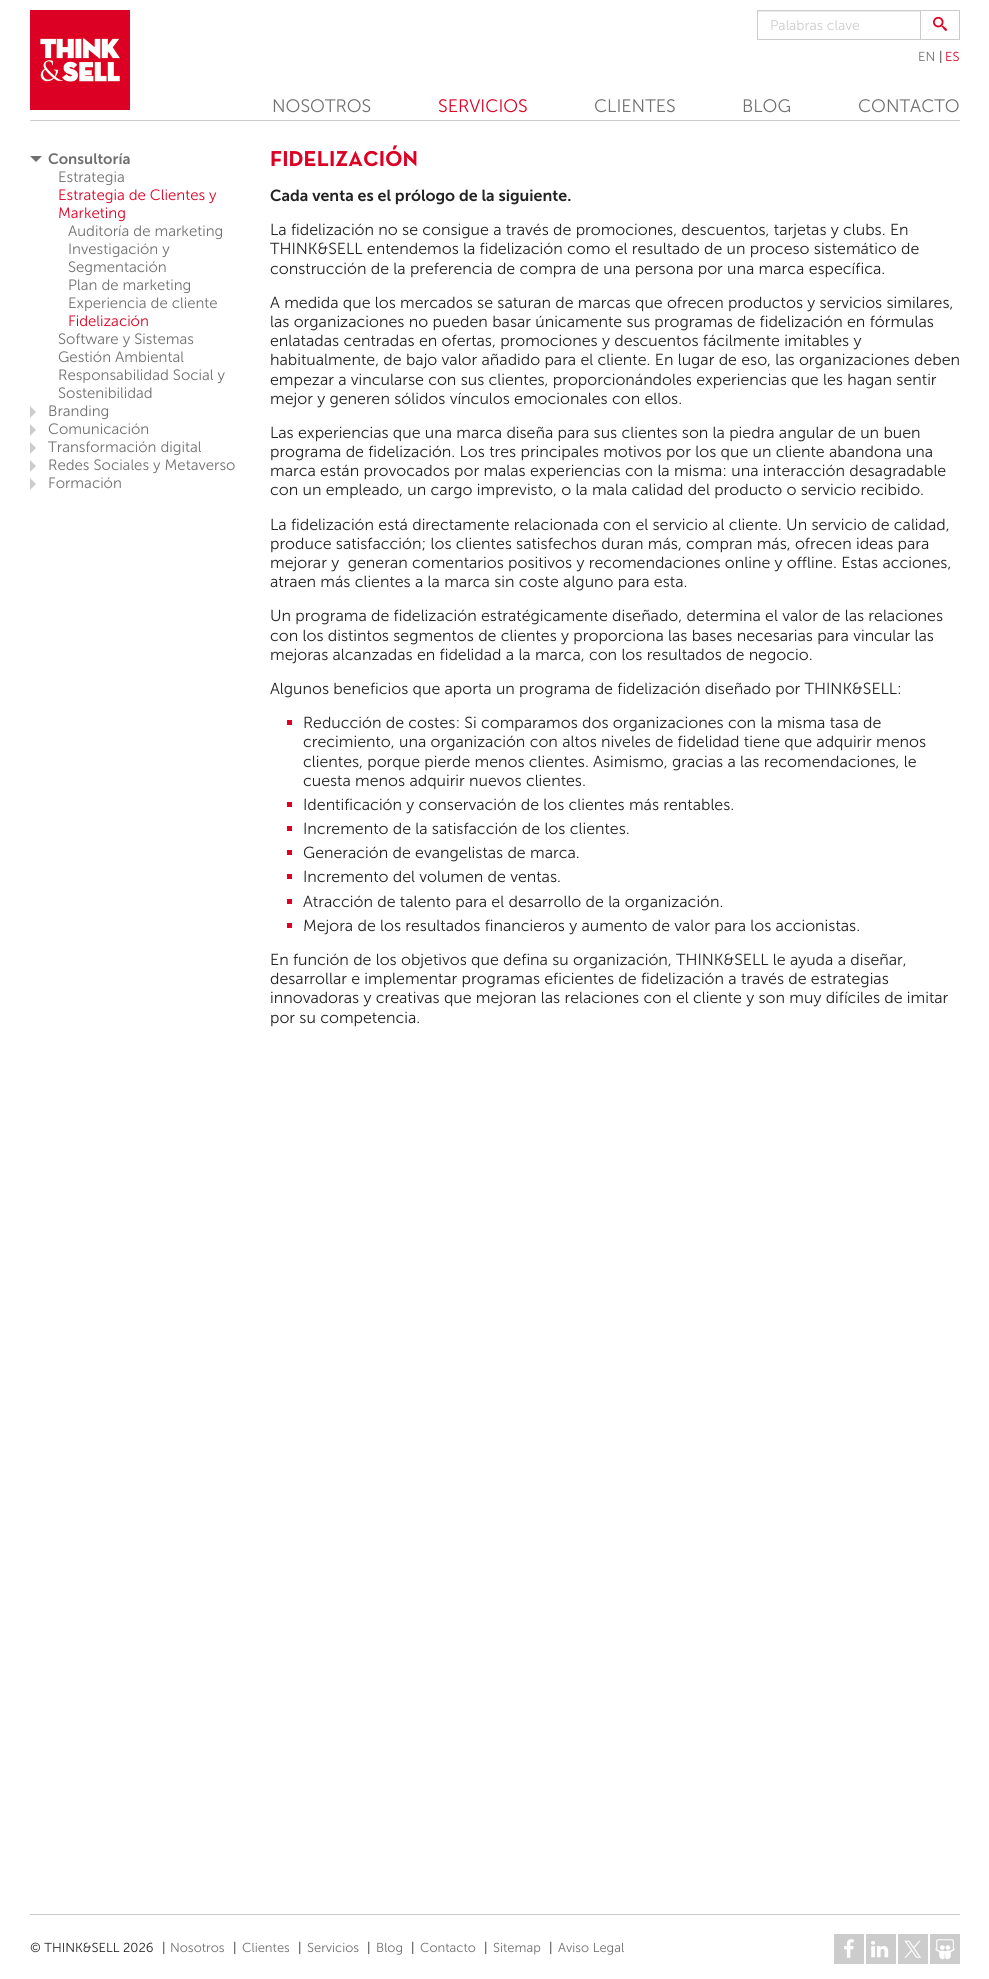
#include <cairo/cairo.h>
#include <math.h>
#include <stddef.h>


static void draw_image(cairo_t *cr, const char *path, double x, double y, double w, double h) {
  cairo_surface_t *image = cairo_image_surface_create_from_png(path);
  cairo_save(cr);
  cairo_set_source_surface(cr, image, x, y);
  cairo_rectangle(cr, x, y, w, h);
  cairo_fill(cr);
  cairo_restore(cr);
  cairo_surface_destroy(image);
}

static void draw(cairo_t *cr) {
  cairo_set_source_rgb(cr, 1, 1, 1);
  cairo_paint(cr);
  draw_image(cr, "images/1.png", 30, 10, 100, 100);
  cairo_set_source_rgb(cr, 236 / 255.0, 236 / 255.0, 236 / 255.0);
  cairo_rectangle(cr, 758, 11, 162, 1);
  cairo_fill(cr);
  cairo_rectangle(cr, 757.5, 10.5, 163, 29);
  cairo_set_source_rgb(cr, 204 / 255.0, 204 / 255.0, 204 / 255.0);
  cairo_set_line_width(cr, 1);
  cairo_stroke(cr);
  cairo_rectangle(cr, 921, 10, 39, 1);
  cairo_fill(cr);
  cairo_rectangle(cr, 959, 10, 1, 30);
  cairo_fill(cr);
  cairo_rectangle(cr, 921, 39, 39, 1);
  cairo_fill(cr);
  draw_image(cr, "images/2.png", 933, 16, 14, 15);
  cairo_rectangle(cr, 30, 120, 930, 1);
  cairo_fill(cr);
  cairo_set_source_rgb(cr, 112 / 255.0, 112 / 255.0, 112 / 255.0);
  cairo_new_path(cr);
  cairo_move_to(cr, 30, 156);
  cairo_line_to(cr, 42, 156);
  cairo_line_to(cr, 36, 162);
  cairo_close_path(cr);
  cairo_fill(cr);
  cairo_set_source_rgb(cr, 204 / 255.0, 204 / 255.0, 204 / 255.0);
  cairo_new_path(cr);
  cairo_move_to(cr, 30, 418);
  cairo_line_to(cr, 30, 406);
  cairo_line_to(cr, 36, 412);
  cairo_close_path(cr);
  cairo_move_to(cr, 30, 436);
  cairo_line_to(cr, 30, 424);
  cairo_line_to(cr, 36, 430);
  cairo_close_path(cr);
  cairo_move_to(cr, 30, 454);
  cairo_line_to(cr, 30, 442);
  cairo_line_to(cr, 36, 448);
  cairo_close_path(cr);
  cairo_fill(cr);
  cairo_new_path(cr);
  cairo_move_to(cr, 30, 472);
  cairo_line_to(cr, 30, 460);
  cairo_line_to(cr, 36, 466);
  cairo_close_path(cr);
  cairo_move_to(cr, 30, 490);
  cairo_line_to(cr, 30, 478);
  cairo_line_to(cr, 36, 484);
  cairo_close_path(cr);
  cairo_fill(cr);
  cairo_set_source_rgb(cr, 220 / 255.0, 0, 35 / 255.0);
  cairo_rectangle(cr, 287, 720, 5, 5);
  cairo_fill(cr);
  cairo_rectangle(cr, 287, 802, 5, 5);
  cairo_fill(cr);
  cairo_rectangle(cr, 287, 826, 5, 5);
  cairo_fill(cr);
  cairo_rectangle(cr, 287, 850, 5, 5);
  cairo_fill(cr);
  cairo_rectangle(cr, 287, 874, 5, 5);
  cairo_fill(cr);
  cairo_rectangle(cr, 287, 899, 5, 5);
  cairo_fill(cr);
  cairo_rectangle(cr, 287, 923, 5, 5);
  cairo_fill(cr);
  cairo_set_source_rgb(cr, 204 / 255.0, 204 / 255.0, 204 / 255.0);
  cairo_rectangle(cr, 30, 1914, 930, 1);
  cairo_fill(cr);
  cairo_rectangle(cr, 834, 1934, 30, 30);
  cairo_fill(cr);
  draw_image(cr, "images/3.png", 844, 1939, 10, 19);
  cairo_rectangle(cr, 866, 1934, 30, 30);
  cairo_fill(cr);
  draw_image(cr, "images/4.png", 871, 1941, 18, 17);
  cairo_rectangle(cr, 898, 1934, 30, 30);
  cairo_fill(cr);
  draw_image(cr, "images/5.png", 904, 1940, 17, 18);
  cairo_rectangle(cr, 930, 1934, 30, 30);
  cairo_fill(cr);
  draw_image(cr, "images/6.png", 935, 1939, 20, 21);
  cairo_select_font_face(cr, "Museo Sans Light", CAIRO_FONT_SLANT_NORMAL, CAIRO_FONT_WEIGHT_NORMAL);
  cairo_set_font_size(cr, 14);
  cairo_move_to(cr, 770, 30);
  cairo_show_text(cr, "Palabras clave");
  cairo_set_font_size(cr, 13);
  cairo_set_source_rgb(cr, 112 / 255.0, 112 / 255.0, 112 / 255.0);
  cairo_move_to(cr, 918, 61);
  cairo_show_text(cr, "EN");
  cairo_set_source_rgb(cr, 34 / 255.0, 34 / 255.0, 34 / 255.0);
  cairo_move_to(cr, 939, 61);
  cairo_show_text(cr, "|");
  cairo_set_source_rgb(cr, 220 / 255.0, 0, 35 / 255.0);
  cairo_move_to(cr, 945, 61);
  cairo_show_text(cr, "ES");
  cairo_set_font_size(cr, 18);
  cairo_set_source_rgb(cr, 112 / 255.0, 112 / 255.0, 112 / 255.0);
  cairo_move_to(cr, 272, 112);
  cairo_show_text(cr, "NOSOTROS");
  cairo_set_source_rgb(cr, 220 / 255.0, 0, 35 / 255.0);
  cairo_move_to(cr, 438, 112);
  cairo_show_text(cr, "SERVICIOS");
  cairo_set_source_rgb(cr, 112 / 255.0, 112 / 255.0, 112 / 255.0);
  cairo_move_to(cr, 594, 112);
  cairo_show_text(cr, "CLIENTES");
  cairo_move_to(cr, 742, 112);
  cairo_show_text(cr, "BLOG");
  cairo_move_to(cr, 858, 112);
  cairo_show_text(cr, "CONTACTO");
  cairo_select_font_face(cr, "Museo Sans SemiBold", CAIRO_FONT_SLANT_NORMAL, CAIRO_FONT_WEIGHT_NORMAL);
  cairo_set_font_size(cr, 15);
  cairo_move_to(cr, 48, 164);
  cairo_show_text(cr, "Consultoría");
  cairo_select_font_face(cr, "Museo Sans Light", CAIRO_FONT_SLANT_NORMAL, CAIRO_FONT_WEIGHT_NORMAL);
  cairo_move_to(cr, 58, 182);
  cairo_show_text(cr, "Estrategia");
  cairo_set_source_rgb(cr, 220 / 255.0, 0, 35 / 255.0);
  cairo_move_to(cr, 58, 200);
  cairo_show_text(cr, "Estrategia de Clientes y");
  cairo_move_to(cr, 58, 218);
  cairo_show_text(cr, "Marketing");
  cairo_set_source_rgb(cr, 112 / 255.0, 112 / 255.0, 112 / 255.0);
  cairo_move_to(cr, 68, 236);
  cairo_show_text(cr, "Auditoría de marketing");
  cairo_move_to(cr, 68, 254);
  cairo_show_text(cr, "Investigación y");
  cairo_move_to(cr, 68, 272);
  cairo_show_text(cr, "Segmentación");
  cairo_move_to(cr, 68, 290);
  cairo_show_text(cr, "Plan de marketing");
  cairo_move_to(cr, 68, 308);
  cairo_show_text(cr, "Experiencia de cliente");
  cairo_set_source_rgb(cr, 220 / 255.0, 0, 35 / 255.0);
  cairo_move_to(cr, 68, 326);
  cairo_show_text(cr, "Fidelización");
  cairo_set_source_rgb(cr, 112 / 255.0, 112 / 255.0, 112 / 255.0);
  cairo_move_to(cr, 58, 344);
  cairo_show_text(cr, "Software y Sistemas");
  cairo_move_to(cr, 58, 362);
  cairo_show_text(cr, "Gestión Ambiental");
  cairo_move_to(cr, 58, 380);
  cairo_show_text(cr, "Responsabilidad Social y");
  cairo_move_to(cr, 58, 398);
  cairo_show_text(cr, "Sostenibilidad");
  cairo_move_to(cr, 48, 416);
  cairo_show_text(cr, "Branding");
  cairo_move_to(cr, 48, 434);
  cairo_show_text(cr, "Comunicación");
  cairo_move_to(cr, 48, 452);
  cairo_show_text(cr, "Transformación digital");
  cairo_move_to(cr, 48, 470);
  cairo_show_text(cr, "Redes Sociales y Metaverso");
  cairo_move_to(cr, 48, 488);
  cairo_show_text(cr, "Formación");
  cairo_select_font_face(cr, "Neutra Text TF", CAIRO_FONT_SLANT_NORMAL, CAIRO_FONT_WEIGHT_BOLD);
  cairo_set_font_size(cr, 22);
  cairo_set_source_rgb(cr, 220 / 255.0, 0, 35 / 255.0);
  cairo_move_to(cr, 270, 166);
  cairo_show_text(cr, "FIDELIZACIÓN");
  cairo_select_font_face(cr, "Museo Sans SemiBold", CAIRO_FONT_SLANT_NORMAL, CAIRO_FONT_WEIGHT_NORMAL);
  cairo_set_font_size(cr, 16);
  cairo_set_source_rgb(cr, 34 / 255.0, 34 / 255.0, 34 / 255.0);
  cairo_move_to(cr, 270, 201);
  cairo_show_text(cr, "Cada venta es el prólogo de la siguiente.");
  cairo_select_font_face(cr, "Museo Sans Light", CAIRO_FONT_SLANT_NORMAL, CAIRO_FONT_WEIGHT_NORMAL);
  cairo_move_to(cr, 270, 235);
  cairo_show_text(cr, "La fidelización no se consigue a través de promociones, descuentos, tarjetas y clubs. En");
  cairo_move_to(cr, 270, 254);
  cairo_show_text(cr, "THINK&SELL entendemos la fidelización como el resultado de un proceso sistemático de");
  cairo_move_to(cr, 270, 274);
  cairo_show_text(cr, "construcción de la preferencia de compra de una persona por una marca específica.");
  cairo_move_to(cr, 270, 308);
  cairo_show_text(cr, "A medida que los mercados se saturan de marcas que ofrecen productos y servicios similares,");
  cairo_move_to(cr, 270, 327);
  cairo_show_text(cr, "las organizaciones no pueden basar únicamente sus programas de fidelización en fórmulas");
  cairo_move_to(cr, 270, 346);
  cairo_show_text(cr, "enlatadas centradas en ofertas, promociones y descuentos fácilmente imitables y");
  cairo_move_to(cr, 270, 365);
  cairo_show_text(cr, "habitualmente, de bajo valor añadido para el cliente. En lugar de eso, las organizaciones deben");
  cairo_move_to(cr, 270, 385);
  cairo_show_text(cr, "empezar a vincularse con sus clientes, proporcionándoles experiencias que les hagan sentir");
  cairo_move_to(cr, 270, 404);
  cairo_show_text(cr, "mejor y generen sólidos vínculos emocionales con ellos.");
  cairo_move_to(cr, 270, 438);
  cairo_show_text(cr, "Las experiencias que una marca diseña para sus clientes son la piedra angular de un buen");
  cairo_move_to(cr, 270, 457);
  cairo_show_text(cr, "programa de fidelización. Los tres principales motivos por los que un cliente abandona una");
  cairo_move_to(cr, 270, 476);
  cairo_show_text(cr, "marca están provocados por malas experiencias con la misma: una interacción desagradable");
  cairo_move_to(cr, 270, 495);
  cairo_show_text(cr, "con un empleado, un cargo imprevisto, o la mala calidad del producto o servicio recibido.");
  cairo_move_to(cr, 270, 530);
  cairo_show_text(cr, "La fidelización está directamente relacionada con el servicio al cliente. Un servicio de calidad,");
  cairo_move_to(cr, 270, 549);
  cairo_show_text(cr, "produce satisfacción; los clientes satisfechos duran más, compran más, ofrecen ideas para");
  cairo_move_to(cr, 270, 568);
  cairo_show_text(cr, "mejorar y  generan comentarios positivos y recomendaciones online y offline. Estas acciones,");
  cairo_move_to(cr, 270, 587);
  cairo_show_text(cr, "atraen más clientes a la marca sin coste alguno para esta.");
  cairo_move_to(cr, 270, 621);
  cairo_show_text(cr, "Un programa de fidelización estratégicamente diseñado, determina el valor de las relaciones");
  cairo_move_to(cr, 270, 641);
  cairo_show_text(cr, "con los distintos segmentos de clientes y proporciona las bases necesarias para vincular las");
  cairo_move_to(cr, 270, 660);
  cairo_show_text(cr, "mejoras alcanzadas en fidelidad a la marca, con los resultados de negocio.");
  cairo_move_to(cr, 270, 694);
  cairo_show_text(cr, "Algunos beneficios que aporta un programa de fidelización diseñado por THINK&SELL:");
  cairo_move_to(cr, 303, 728);
  cairo_show_text(cr, "Reducción de costes: Si comparamos dos organizaciones con la misma tasa de");
  cairo_move_to(cr, 303, 747);
  cairo_show_text(cr, "crecimiento, una organización con altos niveles de fidelidad tiene que adquirir menos");
  cairo_move_to(cr, 303, 767);
  cairo_show_text(cr, "clientes, porque pierde menos clientes. Asimismo, gracias a las recomendaciones, le");
  cairo_move_to(cr, 303, 786);
  cairo_show_text(cr, "cuesta menos adquirir nuevos clientes.");
  cairo_move_to(cr, 303, 810);
  cairo_show_text(cr, "Identificación y conservación de los clientes más rentables.");
  cairo_move_to(cr, 303, 834);
  cairo_show_text(cr, "Incremento de la satisfacción de los clientes.");
  cairo_move_to(cr, 303, 858);
  cairo_show_text(cr, "Generación de evangelistas de marca.");
  cairo_move_to(cr, 303, 882);
  cairo_show_text(cr, "Incremento del volumen de ventas.");
  cairo_move_to(cr, 303, 907);
  cairo_show_text(cr, "Atracción de talento para el desarrollo de la organización.");
  cairo_move_to(cr, 303, 931);
  cairo_show_text(cr, "Mejora de los resultados financieros y aumento de valor para los accionistas.");
  cairo_move_to(cr, 270, 965);
  cairo_show_text(cr, "En función de los objetivos que defina su organización, THINK&SELL le ayuda a diseñar,");
  cairo_move_to(cr, 270, 984);
  cairo_show_text(cr, "desarrollar e implementar programas eficientes de fidelización a través de estrategias");
  cairo_move_to(cr, 270, 1003);
  cairo_show_text(cr, "innovadoras y creativas que mejoran las relaciones con el cliente y son muy difíciles de imitar");
  cairo_move_to(cr, 270, 1023);
  cairo_show_text(cr, "por su competencia.");
  cairo_set_font_size(cr, 13);
  cairo_move_to(cr, 30, 1952);
  cairo_show_text(cr, "© THINK&SELL 2026");
  cairo_move_to(cr, 162, 1952);
  cairo_show_text(cr, "|");
  cairo_set_source_rgb(cr, 112 / 255.0, 112 / 255.0, 112 / 255.0);
  cairo_move_to(cr, 170, 1952);
  cairo_show_text(cr, "Nosotros");
  cairo_set_source_rgb(cr, 34 / 255.0, 34 / 255.0, 34 / 255.0);
  cairo_move_to(cr, 233, 1952);
  cairo_show_text(cr, "|");
  cairo_set_source_rgb(cr, 112 / 255.0, 112 / 255.0, 112 / 255.0);
  cairo_move_to(cr, 242, 1952);
  cairo_show_text(cr, "Clientes");
  cairo_set_source_rgb(cr, 34 / 255.0, 34 / 255.0, 34 / 255.0);
  cairo_move_to(cr, 298, 1952);
  cairo_show_text(cr, "|");
  cairo_set_source_rgb(cr, 112 / 255.0, 112 / 255.0, 112 / 255.0);
  cairo_move_to(cr, 307, 1952);
  cairo_show_text(cr, "Servicios");
  cairo_set_source_rgb(cr, 34 / 255.0, 34 / 255.0, 34 / 255.0);
  cairo_move_to(cr, 367, 1952);
  cairo_show_text(cr, "|");
  cairo_set_source_rgb(cr, 112 / 255.0, 112 / 255.0, 112 / 255.0);
  cairo_move_to(cr, 376, 1952);
  cairo_show_text(cr, "Blog");
  cairo_set_source_rgb(cr, 34 / 255.0, 34 / 255.0, 34 / 255.0);
  cairo_move_to(cr, 411, 1952);
  cairo_show_text(cr, "|");
  cairo_set_source_rgb(cr, 112 / 255.0, 112 / 255.0, 112 / 255.0);
  cairo_move_to(cr, 420, 1952);
  cairo_show_text(cr, "Contacto");
  cairo_set_source_rgb(cr, 34 / 255.0, 34 / 255.0, 34 / 255.0);
  cairo_move_to(cr, 484, 1952);
  cairo_show_text(cr, "|");
  cairo_set_source_rgb(cr, 112 / 255.0, 112 / 255.0, 112 / 255.0);
  cairo_move_to(cr, 493, 1952);
  cairo_show_text(cr, "Sitemap");
  cairo_set_source_rgb(cr, 34 / 255.0, 34 / 255.0, 34 / 255.0);
  cairo_move_to(cr, 549, 1952);
  cairo_show_text(cr, "|");
  cairo_set_source_rgb(cr, 112 / 255.0, 112 / 255.0, 112 / 255.0);
  cairo_move_to(cr, 558, 1952);
  cairo_show_text(cr, "Aviso Legal");
}

int main(void) {
  cairo_surface_t *surface = cairo_image_surface_create(CAIRO_FORMAT_RGB24, 989, 1979);
  cairo_t *cr = cairo_create(surface);
  cairo_font_options_t *options = cairo_font_options_create();
  cairo_font_options_set_hint_metrics(options, CAIRO_HINT_METRICS_OFF);
  cairo_font_options_set_hint_style(options, CAIRO_HINT_STYLE_NONE);
  cairo_set_font_options(cr, options);
  cairo_set_miter_limit(cr, 4);
  draw(cr);
  cairo_surface_write_to_png(surface, "out.png");
  cairo_font_options_destroy(options);
  cairo_destroy(cr);
  cairo_surface_destroy(surface);
  return 0;
}
